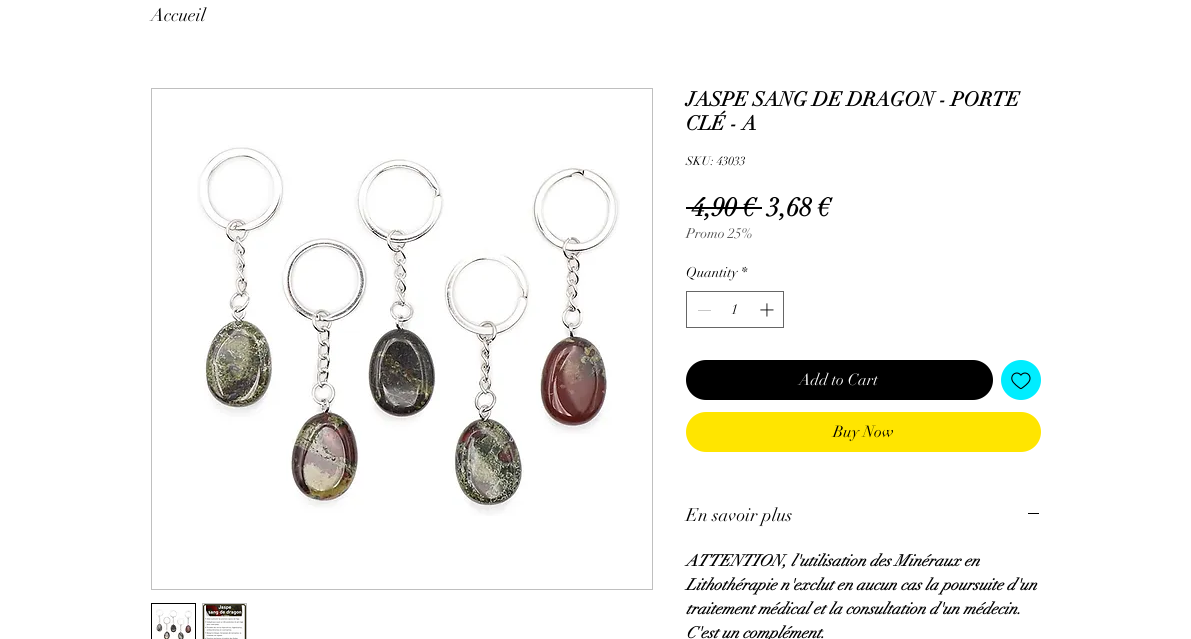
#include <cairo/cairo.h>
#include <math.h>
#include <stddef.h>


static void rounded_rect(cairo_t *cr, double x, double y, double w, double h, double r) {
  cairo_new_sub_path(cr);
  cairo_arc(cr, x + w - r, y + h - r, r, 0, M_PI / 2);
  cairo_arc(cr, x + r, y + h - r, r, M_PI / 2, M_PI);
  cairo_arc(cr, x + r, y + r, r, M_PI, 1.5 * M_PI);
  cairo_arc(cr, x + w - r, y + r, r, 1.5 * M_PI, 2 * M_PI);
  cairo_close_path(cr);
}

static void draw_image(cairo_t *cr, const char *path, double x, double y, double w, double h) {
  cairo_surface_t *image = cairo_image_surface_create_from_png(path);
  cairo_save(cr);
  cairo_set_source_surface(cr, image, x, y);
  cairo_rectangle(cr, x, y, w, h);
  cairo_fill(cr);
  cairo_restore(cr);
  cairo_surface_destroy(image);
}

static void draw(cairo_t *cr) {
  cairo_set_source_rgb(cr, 1, 1, 1);
  cairo_paint(cr);
  cairo_rectangle(cr, 151.5, 88.5, 501, 501);
  cairo_set_source_rgb(cr, 191 / 255.0, 191 / 255.0, 191 / 255.0);
  cairo_set_line_width(cr, 1);
  cairo_stroke(cr);
  draw_image(cr, "images/1.png", 197, 145, 423, 371);
  cairo_rectangle(cr, 151.5, 603.5, 44, 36);
  cairo_set_source_rgb(cr, 0, 0, 0);
  cairo_stroke(cr);
  draw_image(cr, "images/2.png", 156, 609, 36, 30);
  cairo_rectangle(cr, 202.5, 603.5, 44, 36);
  cairo_set_source_rgb(cr, 191 / 255.0, 191 / 255.0, 191 / 255.0);
  cairo_stroke(cr);
  draw_image(cr, "images/3.png", 203, 604, 43, 35);
  cairo_set_source_rgb(cr, 0, 0, 0);
  cairo_rectangle(cr, 686, 207, 76, 2);
  cairo_fill(cr);
  cairo_rectangle(cr, 686.5, 291.5, 97, 36);
  cairo_set_source_rgb(cr, 102 / 255.0, 102 / 255.0, 102 / 255.0);
  cairo_stroke(cr);
  cairo_set_source_rgb(cr, 199 / 255.0, 199 / 255.0, 199 / 255.0);
  cairo_rectangle(cr, 698, 310, 13, 1);
  cairo_fill(cr);
  draw_image(cr, "images/4.png", 760, 303, 14, 14);
  cairo_set_source_rgb(cr, 0, 0, 0);
  rounded_rect(cr, 686, 360, 307, 40, 20);
  cairo_fill(cr);
  cairo_set_source_rgb(cr, 0, 237 / 255.0, 1);
  cairo_arc(cr, 1021, 380, 20, 0, 2 * M_PI);
  cairo_fill(cr);
  draw_image(cr, "images/5.png", 1011, 372, 20, 18);
  cairo_set_source_rgb(cr, 1, 229 / 255.0, 0);
  rounded_rect(cr, 686, 412, 355, 40, 20);
  cairo_fill(cr);
  cairo_set_source_rgb(cr, 0, 0, 0);
  cairo_rectangle(cr, 1028, 513, 11, 1);
  cairo_fill(cr);
  cairo_select_font_face(cr, "didot", CAIRO_FONT_SLANT_NORMAL, CAIRO_FONT_WEIGHT_NORMAL);
  cairo_set_font_size(cr, 18);
  cairo_move_to(cr, 151, 21);
  cairo_show_text(cr, "Accueil");
  cairo_select_font_face(cr, "didot", CAIRO_FONT_SLANT_NORMAL, CAIRO_FONT_WEIGHT_BOLD);
  cairo_set_font_size(cr, 20);
  cairo_move_to(cr, 686, 106);
  cairo_show_text(cr, "JASPE SANG DE DRAGON - PORTE");
  cairo_move_to(cr, 686, 130);
  cairo_show_text(cr, "CLÉ - A");
  cairo_select_font_face(cr, "didot", CAIRO_FONT_SLANT_NORMAL, CAIRO_FONT_WEIGHT_NORMAL);
  cairo_set_font_size(cr, 12);
  cairo_move_to(cr, 686, 165);
  cairo_show_text(cr, "SKU: 43033");
  cairo_select_font_face(cr, "didot", CAIRO_FONT_SLANT_NORMAL, CAIRO_FONT_WEIGHT_BOLD);
  cairo_set_font_size(cr, 26);
  cairo_move_to(cr, 692, 216);
  cairo_show_text(cr, "4,90 €");
  cairo_move_to(cr, 767, 216);
  cairo_show_text(cr, "3,68 €");
  cairo_select_font_face(cr, "didot", CAIRO_FONT_SLANT_NORMAL, CAIRO_FONT_WEIGHT_NORMAL);
  cairo_set_font_size(cr, 14);
  cairo_set_source_rgb(cr, 77 / 255.0, 77 / 255.0, 77 / 255.0);
  cairo_move_to(cr, 686, 238);
  cairo_show_text(cr, "Promo 25%");
  cairo_set_source_rgb(cr, 0, 0, 0);
  cairo_move_to(cr, 686, 277);
  cairo_show_text(cr, "Quantity");
  cairo_move_to(cr, 741, 277);
  cairo_show_text(cr, "*");
  cairo_move_to(cr, 731, 314);
  cairo_show_text(cr, "1");
  cairo_set_font_size(cr, 16);
  cairo_set_source_rgb(cr, 1, 1, 1);
  cairo_move_to(cr, 799, 385);
  cairo_show_text(cr, "Add to Cart");
  cairo_set_source_rgb(cr, 0, 0, 0);
  cairo_move_to(cr, 833, 437);
  cairo_show_text(cr, "Buy Now");
  cairo_set_font_size(cr, 18);
  cairo_move_to(cr, 686, 521);
  cairo_show_text(cr, "En savoir plus");
  cairo_select_font_face(cr, "didot", CAIRO_FONT_SLANT_ITALIC, CAIRO_FONT_WEIGHT_BOLD);
  cairo_set_font_size(cr, 16);
  cairo_move_to(cr, 686, 566);
  cairo_show_text(cr, "ATTENTION, l'utilisation des Minéraux en");
  cairo_move_to(cr, 686, 590);
  cairo_show_text(cr, "Lithothérapie n'exclut en aucun cas la poursuite d'un");
  cairo_move_to(cr, 686, 614);
  cairo_show_text(cr, "traitement médical et la consultation d'un médecin.");
  cairo_move_to(cr, 686, 638);
  cairo_show_text(cr, "C'est un complément.");
}

int main(void) {
  cairo_surface_t *surface = cairo_image_surface_create(CAIRO_FORMAT_RGB24, 1191, 639);
  cairo_t *cr = cairo_create(surface);
  cairo_font_options_t *options = cairo_font_options_create();
  cairo_font_options_set_hint_metrics(options, CAIRO_HINT_METRICS_OFF);
  cairo_font_options_set_hint_style(options, CAIRO_HINT_STYLE_NONE);
  cairo_set_font_options(cr, options);
  cairo_set_miter_limit(cr, 4);
  draw(cr);
  cairo_surface_write_to_png(surface, "out.png");
  cairo_font_options_destroy(options);
  cairo_destroy(cr);
  cairo_surface_destroy(surface);
  return 0;
}
